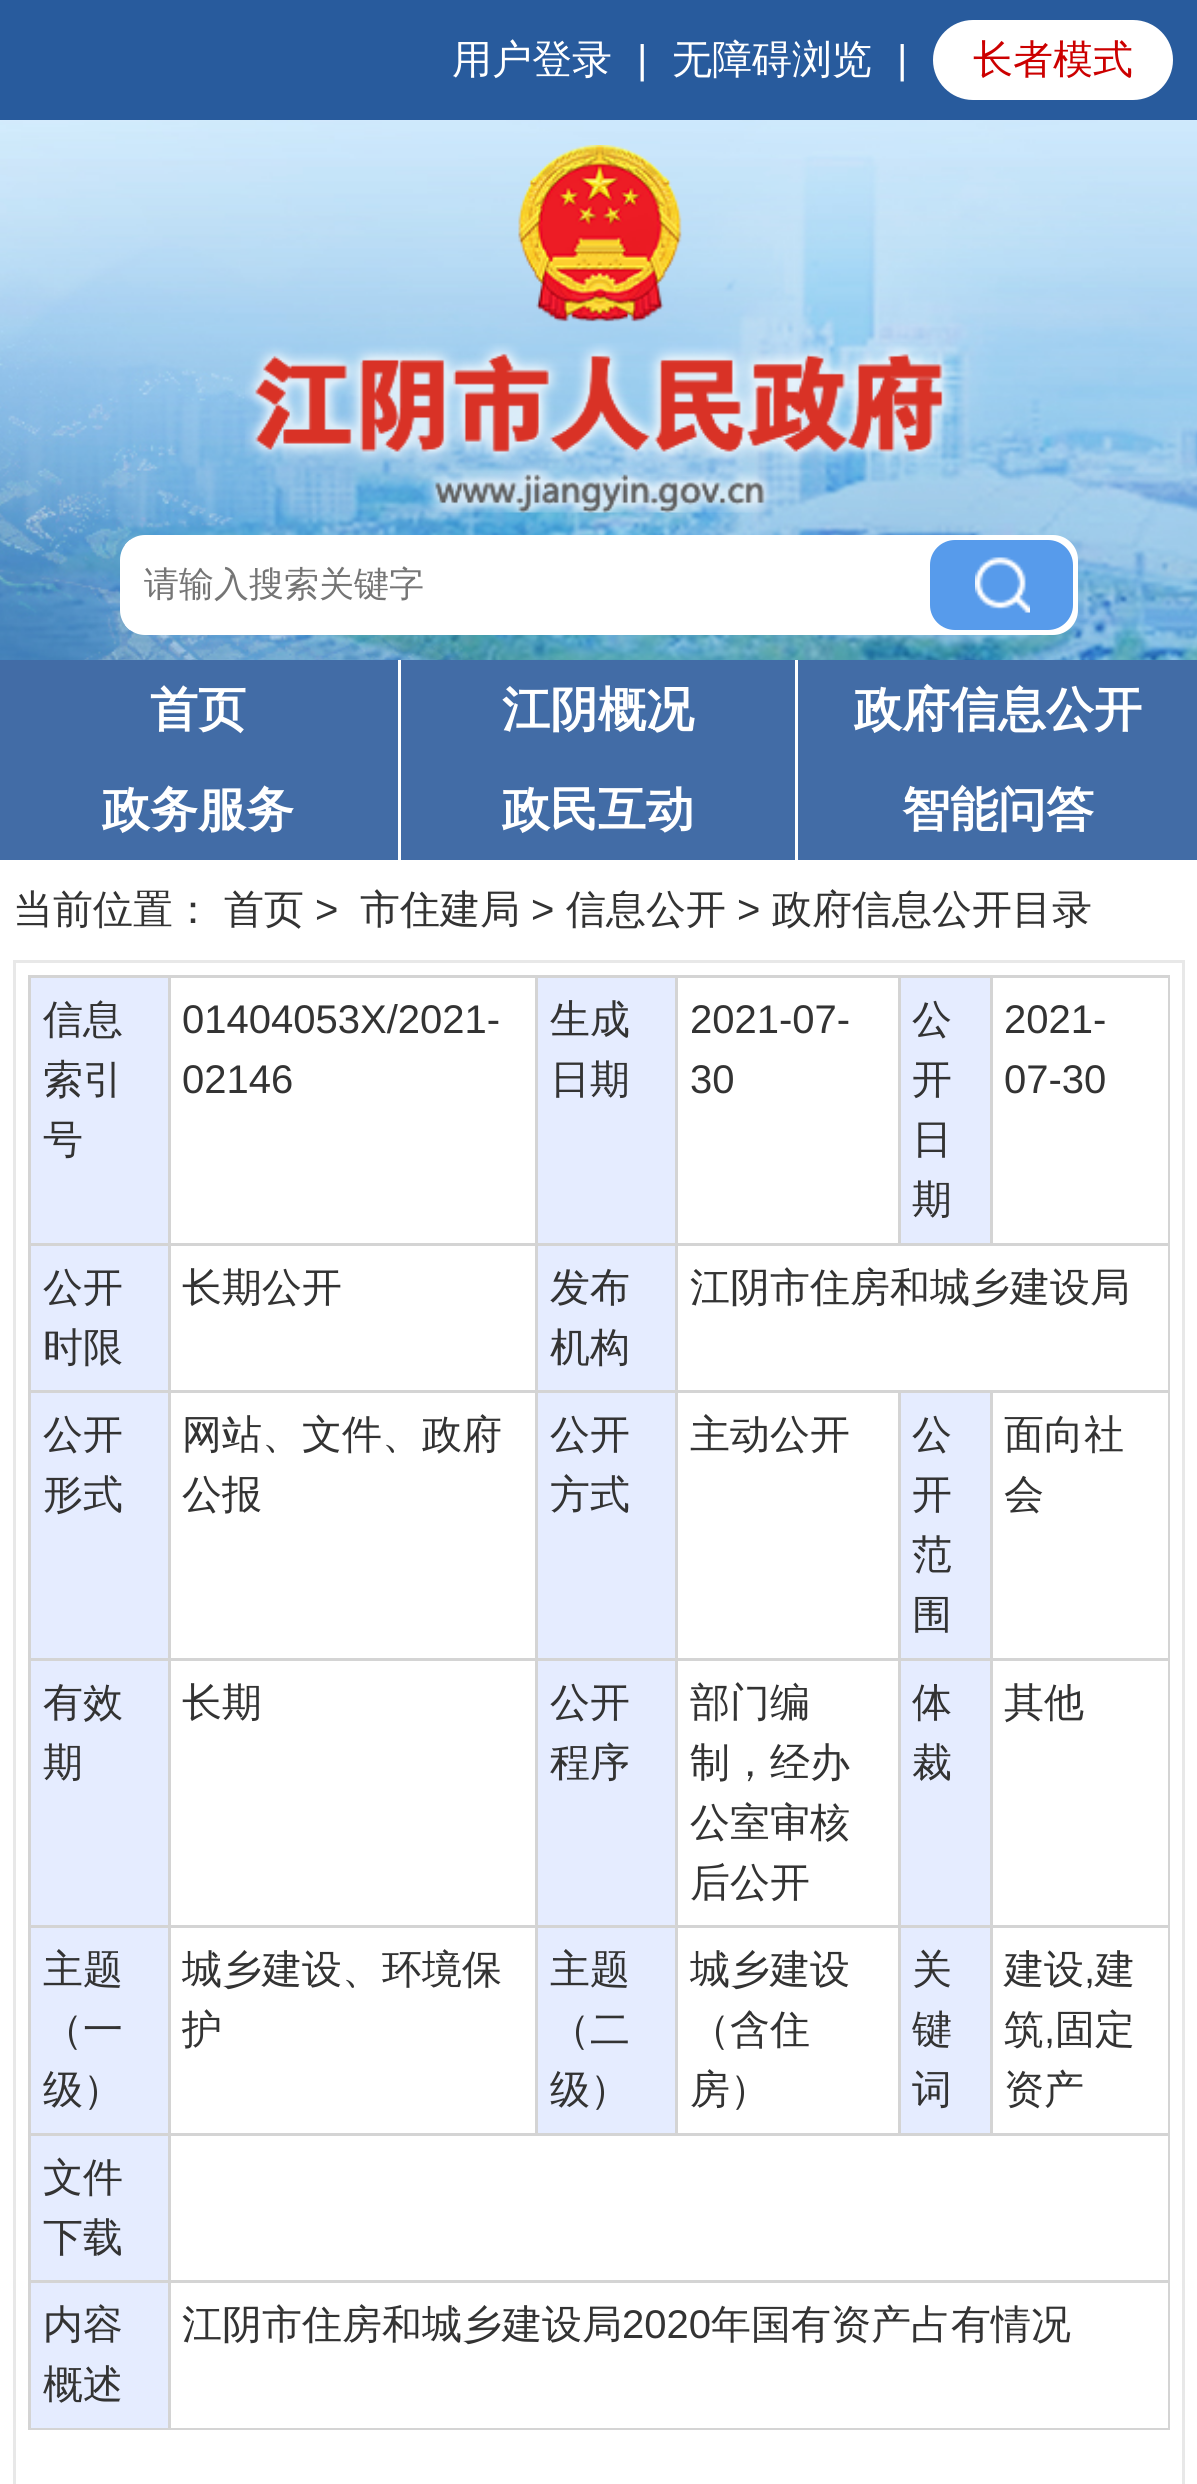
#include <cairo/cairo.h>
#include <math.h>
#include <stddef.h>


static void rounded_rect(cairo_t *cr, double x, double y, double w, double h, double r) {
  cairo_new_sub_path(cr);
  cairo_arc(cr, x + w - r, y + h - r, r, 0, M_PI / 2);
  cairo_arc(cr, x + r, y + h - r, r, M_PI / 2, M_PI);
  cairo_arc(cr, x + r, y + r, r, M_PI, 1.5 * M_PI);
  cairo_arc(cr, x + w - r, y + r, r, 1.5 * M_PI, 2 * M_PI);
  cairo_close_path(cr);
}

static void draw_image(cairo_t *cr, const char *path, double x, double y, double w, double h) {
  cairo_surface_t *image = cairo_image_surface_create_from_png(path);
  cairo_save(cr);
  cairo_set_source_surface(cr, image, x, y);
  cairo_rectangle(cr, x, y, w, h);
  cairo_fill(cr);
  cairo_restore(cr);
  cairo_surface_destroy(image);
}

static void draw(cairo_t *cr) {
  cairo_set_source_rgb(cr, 1, 1, 1);
  cairo_paint(cr);
  cairo_set_source_rgb(cr, 40 / 255.0, 91 / 255.0, 157 / 255.0);
  cairo_rectangle(cr, 0, 0, 1197, 120);
  cairo_fill(cr);
  cairo_set_source_rgb(cr, 1, 1, 1);
  rounded_rect(cr, 933, 20, 240, 80, 40);
  cairo_fill(cr);
  draw_image(cr, "images/1.png", 0, 120, 1197, 540);
  draw_image(cr, "images/2.png", 518, 145, 164, 177);
  draw_image(cr, "images/3.png", 245, 343, 710, 170);
  rounded_rect(cr, 120, 535, 958, 100, 25);
  cairo_fill(cr);
  cairo_save(cr);
  rounded_rect(cr, 120, 535, 958, 100, 25);
  cairo_clip(cr);
  cairo_rectangle(cr, 125, 540, 758, 90);
  cairo_fill(cr);
  cairo_restore(cr);
  cairo_set_source_rgb(cr, 87 / 255.0, 155 / 255.0, 235 / 255.0);
  rounded_rect(cr, 930, 540, 143, 90, 25);
  cairo_fill(cr);
  draw_image(cr, "images/4.png", 975, 557, 55, 56);
  cairo_set_source_rgb(cr, 66 / 255.0, 108 / 255.0, 166 / 255.0);
  cairo_rectangle(cr, 0, 660, 1197, 200);
  cairo_fill(cr);
  cairo_set_source_rgb(cr, 1, 1, 1);
  cairo_rectangle(cr, 398, 660, 3, 200);
  cairo_fill(cr);
  cairo_rectangle(cr, 795, 660, 3, 200);
  cairo_fill(cr);
  cairo_rectangle(cr, 14.5, 961.5, 1169, 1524);
  cairo_set_source_rgb(cr, 232 / 255.0, 232 / 255.0, 232 / 255.0);
  cairo_set_line_width(cr, 3);
  cairo_stroke(cr);
  cairo_set_source_rgb(cr, 229 / 255.0, 236 / 255.0, 1);
  cairo_rectangle(cr, 31, 978, 137, 265);
  cairo_fill(cr);
  cairo_set_source_rgb(cr, 212 / 255.0, 212 / 255.0, 212 / 255.0);
  cairo_rectangle(cr, 990, 975, 180, 3);
  cairo_fill(cr);
  cairo_rectangle(cr, 675, 1243, 495, 3);
  cairo_fill(cr);
  cairo_rectangle(cr, 990, 975, 3, 270);
  cairo_fill(cr);
  cairo_rectangle(cr, 898, 975, 95, 3);
  cairo_fill(cr);
  cairo_rectangle(cr, 898, 975, 3, 270);
  cairo_fill(cr);
  cairo_rectangle(cr, 675, 975, 225, 3);
  cairo_fill(cr);
  cairo_rectangle(cr, 990, 1390, 180, 3);
  cairo_fill(cr);
  cairo_rectangle(cr, 990, 1658, 180, 3);
  cairo_fill(cr);
  cairo_rectangle(cr, 990, 1925, 180, 3);
  cairo_fill(cr);
  cairo_rectangle(cr, 168, 2133, 1002, 3);
  cairo_fill(cr);
  cairo_rectangle(cr, 990, 1925, 3, 210);
  cairo_fill(cr);
  cairo_rectangle(cr, 898, 1925, 95, 3);
  cairo_fill(cr);
  cairo_rectangle(cr, 990, 1658, 3, 270);
  cairo_fill(cr);
  cairo_rectangle(cr, 898, 1658, 95, 3);
  cairo_fill(cr);
  cairo_rectangle(cr, 990, 1390, 3, 270);
  cairo_fill(cr);
  cairo_rectangle(cr, 898, 1390, 95, 3);
  cairo_fill(cr);
  cairo_rectangle(cr, 898, 1925, 3, 210);
  cairo_fill(cr);
  cairo_rectangle(cr, 675, 1925, 225, 3);
  cairo_fill(cr);
  cairo_rectangle(cr, 898, 1658, 3, 270);
  cairo_fill(cr);
  cairo_rectangle(cr, 675, 1658, 225, 3);
  cairo_fill(cr);
  cairo_rectangle(cr, 898, 1390, 3, 270);
  cairo_fill(cr);
  cairo_rectangle(cr, 675, 1390, 225, 3);
  cairo_fill(cr);
  cairo_rectangle(cr, 675, 1925, 3, 210);
  cairo_fill(cr);
  cairo_rectangle(cr, 535, 1925, 143, 3);
  cairo_fill(cr);
  cairo_rectangle(cr, 675, 1658, 3, 270);
  cairo_fill(cr);
  cairo_rectangle(cr, 535, 1658, 143, 3);
  cairo_fill(cr);
  cairo_rectangle(cr, 675, 1390, 3, 270);
  cairo_fill(cr);
  cairo_rectangle(cr, 535, 1390, 143, 3);
  cairo_fill(cr);
  cairo_rectangle(cr, 675, 1243, 3, 150);
  cairo_fill(cr);
  cairo_rectangle(cr, 535, 1243, 143, 3);
  cairo_fill(cr);
  cairo_rectangle(cr, 675, 975, 3, 270);
  cairo_fill(cr);
  cairo_rectangle(cr, 535, 975, 143, 3);
  cairo_fill(cr);
  cairo_rectangle(cr, 535, 1925, 3, 210);
  cairo_fill(cr);
  cairo_rectangle(cr, 168, 1925, 370, 3);
  cairo_fill(cr);
  cairo_rectangle(cr, 535, 1658, 3, 270);
  cairo_fill(cr);
  cairo_rectangle(cr, 168, 1658, 370, 3);
  cairo_fill(cr);
  cairo_rectangle(cr, 535, 1390, 3, 270);
  cairo_fill(cr);
  cairo_rectangle(cr, 168, 1390, 370, 3);
  cairo_fill(cr);
  cairo_rectangle(cr, 535, 1243, 3, 150);
  cairo_fill(cr);
  cairo_rectangle(cr, 168, 1243, 370, 3);
  cairo_fill(cr);
  cairo_rectangle(cr, 535, 975, 3, 270);
  cairo_fill(cr);
  cairo_rectangle(cr, 168, 975, 370, 3);
  cairo_fill(cr);
  cairo_rectangle(cr, 168, 2280, 1002, 3);
  cairo_fill(cr);
  cairo_rectangle(cr, 1168, 2280, 2, 150);
  cairo_fill(cr);
  cairo_rectangle(cr, 168, 2428, 1002, 2);
  cairo_fill(cr);
  cairo_rectangle(cr, 168, 2280, 3, 150);
  cairo_fill(cr);
  cairo_rectangle(cr, 28, 2280, 142, 3);
  cairo_fill(cr);
  cairo_rectangle(cr, 168, 2133, 3, 150);
  cairo_fill(cr);
  cairo_rectangle(cr, 28, 2133, 142, 3);
  cairo_fill(cr);
  cairo_rectangle(cr, 168, 1925, 3, 210);
  cairo_fill(cr);
  cairo_rectangle(cr, 28, 1925, 142, 3);
  cairo_fill(cr);
  cairo_rectangle(cr, 168, 1658, 3, 270);
  cairo_fill(cr);
  cairo_rectangle(cr, 28, 1658, 142, 3);
  cairo_fill(cr);
  cairo_rectangle(cr, 168, 1390, 3, 270);
  cairo_fill(cr);
  cairo_rectangle(cr, 28, 1390, 142, 3);
  cairo_fill(cr);
  cairo_rectangle(cr, 168, 1243, 3, 150);
  cairo_fill(cr);
  cairo_rectangle(cr, 28, 1243, 142, 3);
  cairo_fill(cr);
  cairo_rectangle(cr, 168, 975, 3, 270);
  cairo_fill(cr);
  cairo_rectangle(cr, 28, 975, 142, 3);
  cairo_fill(cr);
  cairo_rectangle(cr, 28, 2428, 142, 2);
  cairo_fill(cr);
  cairo_rectangle(cr, 28, 2280, 3, 150);
  cairo_fill(cr);
  cairo_rectangle(cr, 28, 2133, 3, 150);
  cairo_fill(cr);
  cairo_rectangle(cr, 28, 1925, 3, 210);
  cairo_fill(cr);
  cairo_rectangle(cr, 28, 1658, 3, 270);
  cairo_fill(cr);
  cairo_rectangle(cr, 28, 1390, 3, 270);
  cairo_fill(cr);
  cairo_rectangle(cr, 28, 1243, 3, 150);
  cairo_fill(cr);
  cairo_rectangle(cr, 28, 975, 3, 270);
  cairo_fill(cr);
  cairo_set_source_rgb(cr, 229 / 255.0, 236 / 255.0, 1);
  cairo_rectangle(cr, 538, 978, 137, 265);
  cairo_fill(cr);
  cairo_rectangle(cr, 901, 978, 89, 265);
  cairo_fill(cr);
  cairo_set_source_rgb(cr, 212 / 255.0, 212 / 255.0, 212 / 255.0);
  cairo_rectangle(cr, 1168, 2133, 2, 150);
  cairo_fill(cr);
  cairo_rectangle(cr, 1168, 1925, 2, 210);
  cairo_fill(cr);
  cairo_rectangle(cr, 1168, 1658, 2, 270);
  cairo_fill(cr);
  cairo_rectangle(cr, 1168, 1390, 2, 270);
  cairo_fill(cr);
  cairo_rectangle(cr, 1168, 1243, 2, 150);
  cairo_fill(cr);
  cairo_rectangle(cr, 1168, 975, 2, 270);
  cairo_fill(cr);
  cairo_set_source_rgb(cr, 229 / 255.0, 236 / 255.0, 1);
  cairo_rectangle(cr, 31, 1246, 137, 144);
  cairo_fill(cr);
  cairo_rectangle(cr, 538, 1246, 137, 144);
  cairo_fill(cr);
  cairo_rectangle(cr, 31, 1393, 137, 265);
  cairo_fill(cr);
  cairo_rectangle(cr, 538, 1393, 137, 265);
  cairo_fill(cr);
  cairo_rectangle(cr, 901, 1393, 89, 265);
  cairo_fill(cr);
  cairo_rectangle(cr, 31, 1661, 137, 264);
  cairo_fill(cr);
  cairo_rectangle(cr, 538, 1661, 137, 264);
  cairo_fill(cr);
  cairo_rectangle(cr, 901, 1661, 89, 264);
  cairo_fill(cr);
  cairo_rectangle(cr, 31, 1928, 137, 205);
  cairo_fill(cr);
  cairo_rectangle(cr, 538, 1928, 137, 205);
  cairo_fill(cr);
  cairo_rectangle(cr, 901, 1928, 89, 205);
  cairo_fill(cr);
  cairo_rectangle(cr, 31, 2136, 137, 144);
  cairo_fill(cr);
  cairo_rectangle(cr, 31, 2283, 137, 145);
  cairo_fill(cr);
  cairo_select_font_face(cr, "WenQuanYi Zen Hei Medium", CAIRO_FONT_SLANT_NORMAL, CAIRO_FONT_WEIGHT_NORMAL);
  cairo_set_font_size(cr, 40);
  cairo_set_source_rgb(cr, 1, 1, 1);
  cairo_move_to(cr, 452, 73);
  cairo_show_text(cr, "用户登录");
  cairo_select_font_face(cr, "Liberation Sans", CAIRO_FONT_SLANT_NORMAL, CAIRO_FONT_WEIGHT_NORMAL);
  cairo_move_to(cr, 637, 73);
  cairo_show_text(cr, "|");
  cairo_select_font_face(cr, "WenQuanYi Zen Hei Medium", CAIRO_FONT_SLANT_NORMAL, CAIRO_FONT_WEIGHT_NORMAL);
  cairo_move_to(cr, 672, 73);
  cairo_show_text(cr, "无障碍浏览");
  cairo_select_font_face(cr, "Liberation Sans", CAIRO_FONT_SLANT_NORMAL, CAIRO_FONT_WEIGHT_NORMAL);
  cairo_move_to(cr, 897, 73);
  cairo_show_text(cr, "|");
  cairo_select_font_face(cr, "WenQuanYi Zen Hei Medium", CAIRO_FONT_SLANT_NORMAL, CAIRO_FONT_WEIGHT_NORMAL);
  cairo_set_source_rgb(cr, 204 / 255.0, 0, 0);
  cairo_move_to(cr, 973, 73);
  cairo_show_text(cr, "长者模式");
  cairo_set_font_size(cr, 35);
  cairo_set_source_rgb(cr, 117 / 255.0, 117 / 255.0, 117 / 255.0);
  cairo_move_to(cr, 144, 596);
  cairo_show_text(cr, "请输入搜索关键字");
  cairo_select_font_face(cr, "WenQuanYi Zen Hei", CAIRO_FONT_SLANT_NORMAL, CAIRO_FONT_WEIGHT_BOLD);
  cairo_set_font_size(cr, 48);
  cairo_set_source_rgb(cr, 1, 1, 1);
  cairo_move_to(cr, 150, 726);
  cairo_show_text(cr, "首页");
  cairo_move_to(cr, 502, 726);
  cairo_show_text(cr, "江阴概况");
  cairo_move_to(cr, 854, 726);
  cairo_show_text(cr, "政府信息公开");
  cairo_move_to(cr, 102, 826);
  cairo_show_text(cr, "政务服务");
  cairo_move_to(cr, 502, 826);
  cairo_show_text(cr, "政民互动");
  cairo_move_to(cr, 902, 826);
  cairo_show_text(cr, "智能问答");
  cairo_select_font_face(cr, "WenQuanYi Zen Hei Medium", CAIRO_FONT_SLANT_NORMAL, CAIRO_FONT_WEIGHT_NORMAL);
  cairo_set_font_size(cr, 40);
  cairo_set_source_rgb(cr, 51 / 255.0, 51 / 255.0, 51 / 255.0);
  cairo_move_to(cr, 13, 923);
  cairo_show_text(cr, "当前位置：");
  cairo_move_to(cr, 224, 923);
  cairo_show_text(cr, "首页");
  cairo_select_font_face(cr, "Liberation Sans", CAIRO_FONT_SLANT_NORMAL, CAIRO_FONT_WEIGHT_NORMAL);
  cairo_move_to(cr, 315, 923);
  cairo_show_text(cr, ">");
  cairo_select_font_face(cr, "WenQuanYi Zen Hei Medium", CAIRO_FONT_SLANT_NORMAL, CAIRO_FONT_WEIGHT_NORMAL);
  cairo_move_to(cr, 360, 923);
  cairo_show_text(cr, "市住建局");
  cairo_select_font_face(cr, "Liberation Sans", CAIRO_FONT_SLANT_NORMAL, CAIRO_FONT_WEIGHT_NORMAL);
  cairo_move_to(cr, 531, 923);
  cairo_show_text(cr, ">");
  cairo_select_font_face(cr, "WenQuanYi Zen Hei Medium", CAIRO_FONT_SLANT_NORMAL, CAIRO_FONT_WEIGHT_NORMAL);
  cairo_move_to(cr, 566, 923);
  cairo_show_text(cr, "信息公开");
  cairo_select_font_face(cr, "Liberation Sans", CAIRO_FONT_SLANT_NORMAL, CAIRO_FONT_WEIGHT_NORMAL);
  cairo_move_to(cr, 737, 923);
  cairo_show_text(cr, ">");
  cairo_select_font_face(cr, "WenQuanYi Zen Hei Medium", CAIRO_FONT_SLANT_NORMAL, CAIRO_FONT_WEIGHT_NORMAL);
  cairo_move_to(cr, 772, 923);
  cairo_show_text(cr, "政府信息公开目录");
  cairo_move_to(cr, 43, 1033);
  cairo_show_text(cr, "信息");
  cairo_move_to(cr, 43, 1093);
  cairo_show_text(cr, "索引");
  cairo_move_to(cr, 43, 1153);
  cairo_show_text(cr, "号");
  cairo_select_font_face(cr, "Liberation Sans", CAIRO_FONT_SLANT_NORMAL, CAIRO_FONT_WEIGHT_NORMAL);
  cairo_move_to(cr, 182, 1033);
  cairo_show_text(cr, "01404053X/2021-");
  cairo_move_to(cr, 182, 1093);
  cairo_show_text(cr, "02146");
  cairo_select_font_face(cr, "WenQuanYi Zen Hei Medium", CAIRO_FONT_SLANT_NORMAL, CAIRO_FONT_WEIGHT_NORMAL);
  cairo_move_to(cr, 550, 1033);
  cairo_show_text(cr, "生成");
  cairo_move_to(cr, 550, 1093);
  cairo_show_text(cr, "日期");
  cairo_select_font_face(cr, "Liberation Sans", CAIRO_FONT_SLANT_NORMAL, CAIRO_FONT_WEIGHT_NORMAL);
  cairo_move_to(cr, 690, 1033);
  cairo_show_text(cr, "2021-07-");
  cairo_move_to(cr, 690, 1093);
  cairo_show_text(cr, "30");
  cairo_select_font_face(cr, "WenQuanYi Zen Hei Medium", CAIRO_FONT_SLANT_NORMAL, CAIRO_FONT_WEIGHT_NORMAL);
  cairo_move_to(cr, 912, 1033);
  cairo_show_text(cr, "公");
  cairo_move_to(cr, 912, 1093);
  cairo_show_text(cr, "开");
  cairo_move_to(cr, 912, 1153);
  cairo_show_text(cr, "日");
  cairo_move_to(cr, 912, 1213);
  cairo_show_text(cr, "期");
  cairo_select_font_face(cr, "Liberation Sans", CAIRO_FONT_SLANT_NORMAL, CAIRO_FONT_WEIGHT_NORMAL);
  cairo_move_to(cr, 1004, 1033);
  cairo_show_text(cr, "2021-");
  cairo_move_to(cr, 1004, 1093);
  cairo_show_text(cr, "07-30");
  cairo_select_font_face(cr, "WenQuanYi Zen Hei Medium", CAIRO_FONT_SLANT_NORMAL, CAIRO_FONT_WEIGHT_NORMAL);
  cairo_move_to(cr, 43, 1301);
  cairo_show_text(cr, "公开");
  cairo_move_to(cr, 43, 1361);
  cairo_show_text(cr, "时限");
  cairo_move_to(cr, 182, 1301);
  cairo_show_text(cr, "长期公开");
  cairo_move_to(cr, 550, 1301);
  cairo_show_text(cr, "发布");
  cairo_move_to(cr, 550, 1361);
  cairo_show_text(cr, "机构");
  cairo_move_to(cr, 690, 1301);
  cairo_show_text(cr, "江阴市住房和城乡建设局");
  cairo_move_to(cr, 43, 1448);
  cairo_show_text(cr, "公开");
  cairo_move_to(cr, 43, 1508);
  cairo_show_text(cr, "形式");
  cairo_move_to(cr, 182, 1448);
  cairo_show_text(cr, "网站、文件、政府");
  cairo_move_to(cr, 182, 1508);
  cairo_show_text(cr, "公报");
  cairo_move_to(cr, 550, 1448);
  cairo_show_text(cr, "公开");
  cairo_move_to(cr, 550, 1508);
  cairo_show_text(cr, "方式");
  cairo_move_to(cr, 690, 1448);
  cairo_show_text(cr, "主动公开");
  cairo_move_to(cr, 912, 1448);
  cairo_show_text(cr, "公");
  cairo_move_to(cr, 912, 1508);
  cairo_show_text(cr, "开");
  cairo_move_to(cr, 912, 1568);
  cairo_show_text(cr, "范");
  cairo_move_to(cr, 912, 1628);
  cairo_show_text(cr, "围");
  cairo_move_to(cr, 1004, 1448);
  cairo_show_text(cr, "面向社");
  cairo_move_to(cr, 1004, 1508);
  cairo_show_text(cr, "会");
  cairo_move_to(cr, 43, 1716);
  cairo_show_text(cr, "有效");
  cairo_move_to(cr, 43, 1776);
  cairo_show_text(cr, "期");
  cairo_move_to(cr, 182, 1716);
  cairo_show_text(cr, "长期");
  cairo_move_to(cr, 550, 1716);
  cairo_show_text(cr, "公开");
  cairo_move_to(cr, 550, 1776);
  cairo_show_text(cr, "程序");
  cairo_move_to(cr, 690, 1716);
  cairo_show_text(cr, "部门编");
  cairo_move_to(cr, 690, 1776);
  cairo_show_text(cr, "制，经办");
  cairo_move_to(cr, 690, 1836);
  cairo_show_text(cr, "公室审核");
  cairo_move_to(cr, 690, 1896);
  cairo_show_text(cr, "后公开");
  cairo_move_to(cr, 912, 1716);
  cairo_show_text(cr, "体");
  cairo_move_to(cr, 912, 1776);
  cairo_show_text(cr, "裁");
  cairo_move_to(cr, 1004, 1716);
  cairo_show_text(cr, "其他");
  cairo_move_to(cr, 43, 1983);
  cairo_show_text(cr, "主题");
  cairo_move_to(cr, 43, 2043);
  cairo_show_text(cr, "（一");
  cairo_move_to(cr, 43, 2103);
  cairo_show_text(cr, "级）");
  cairo_move_to(cr, 182, 1983);
  cairo_show_text(cr, "城乡建设、环境保");
  cairo_move_to(cr, 182, 2043);
  cairo_show_text(cr, "护");
  cairo_move_to(cr, 550, 1983);
  cairo_show_text(cr, "主题");
  cairo_move_to(cr, 550, 2043);
  cairo_show_text(cr, "（二");
  cairo_move_to(cr, 550, 2103);
  cairo_show_text(cr, "级）");
  cairo_move_to(cr, 690, 1983);
  cairo_show_text(cr, "城乡建设");
  cairo_move_to(cr, 690, 2043);
  cairo_show_text(cr, "（含住");
  cairo_move_to(cr, 690, 2103);
  cairo_show_text(cr, "房）");
  cairo_move_to(cr, 912, 1983);
  cairo_show_text(cr, "关");
  cairo_move_to(cr, 912, 2043);
  cairo_show_text(cr, "键");
  cairo_move_to(cr, 912, 2103);
  cairo_show_text(cr, "词");
  cairo_move_to(cr, 1004, 1983);
  cairo_show_text(cr, "建设");
  cairo_select_font_face(cr, "Liberation Sans", CAIRO_FONT_SLANT_NORMAL, CAIRO_FONT_WEIGHT_NORMAL);
  cairo_move_to(cr, 1084, 1983);
  cairo_show_text(cr, ",");
  cairo_select_font_face(cr, "WenQuanYi Zen Hei Medium", CAIRO_FONT_SLANT_NORMAL, CAIRO_FONT_WEIGHT_NORMAL);
  cairo_move_to(cr, 1095, 1983);
  cairo_show_text(cr, "建");
  cairo_move_to(cr, 1004, 2043);
  cairo_show_text(cr, "筑");
  cairo_select_font_face(cr, "Liberation Sans", CAIRO_FONT_SLANT_NORMAL, CAIRO_FONT_WEIGHT_NORMAL);
  cairo_move_to(cr, 1044, 2043);
  cairo_show_text(cr, ",");
  cairo_select_font_face(cr, "WenQuanYi Zen Hei Medium", CAIRO_FONT_SLANT_NORMAL, CAIRO_FONT_WEIGHT_NORMAL);
  cairo_move_to(cr, 1055, 2043);
  cairo_show_text(cr, "固定");
  cairo_move_to(cr, 1004, 2103);
  cairo_show_text(cr, "资产");
  cairo_move_to(cr, 43, 2191);
  cairo_show_text(cr, "文件");
  cairo_move_to(cr, 43, 2251);
  cairo_show_text(cr, "下载");
  cairo_move_to(cr, 43, 2338);
  cairo_show_text(cr, "内容");
  cairo_move_to(cr, 43, 2398);
  cairo_show_text(cr, "概述");
  cairo_move_to(cr, 182, 2338);
  cairo_show_text(cr, "江阴市住房和城乡建设局");
  cairo_select_font_face(cr, "Liberation Sans", CAIRO_FONT_SLANT_NORMAL, CAIRO_FONT_WEIGHT_NORMAL);
  cairo_move_to(cr, 622, 2338);
  cairo_show_text(cr, "2020");
  cairo_select_font_face(cr, "WenQuanYi Zen Hei Medium", CAIRO_FONT_SLANT_NORMAL, CAIRO_FONT_WEIGHT_NORMAL);
  cairo_move_to(cr, 711, 2338);
  cairo_show_text(cr, "年国有资产占有情况");
}

int main(void) {
  cairo_surface_t *surface = cairo_image_surface_create(CAIRO_FORMAT_RGB24, 1197, 2484);
  cairo_t *cr = cairo_create(surface);
  cairo_font_options_t *options = cairo_font_options_create();
  cairo_font_options_set_hint_metrics(options, CAIRO_HINT_METRICS_OFF);
  cairo_font_options_set_hint_style(options, CAIRO_HINT_STYLE_NONE);
  cairo_set_font_options(cr, options);
  cairo_set_miter_limit(cr, 4);
  draw(cr);
  cairo_surface_write_to_png(surface, "out.png");
  cairo_font_options_destroy(options);
  cairo_destroy(cr);
  cairo_surface_destroy(surface);
  return 0;
}
